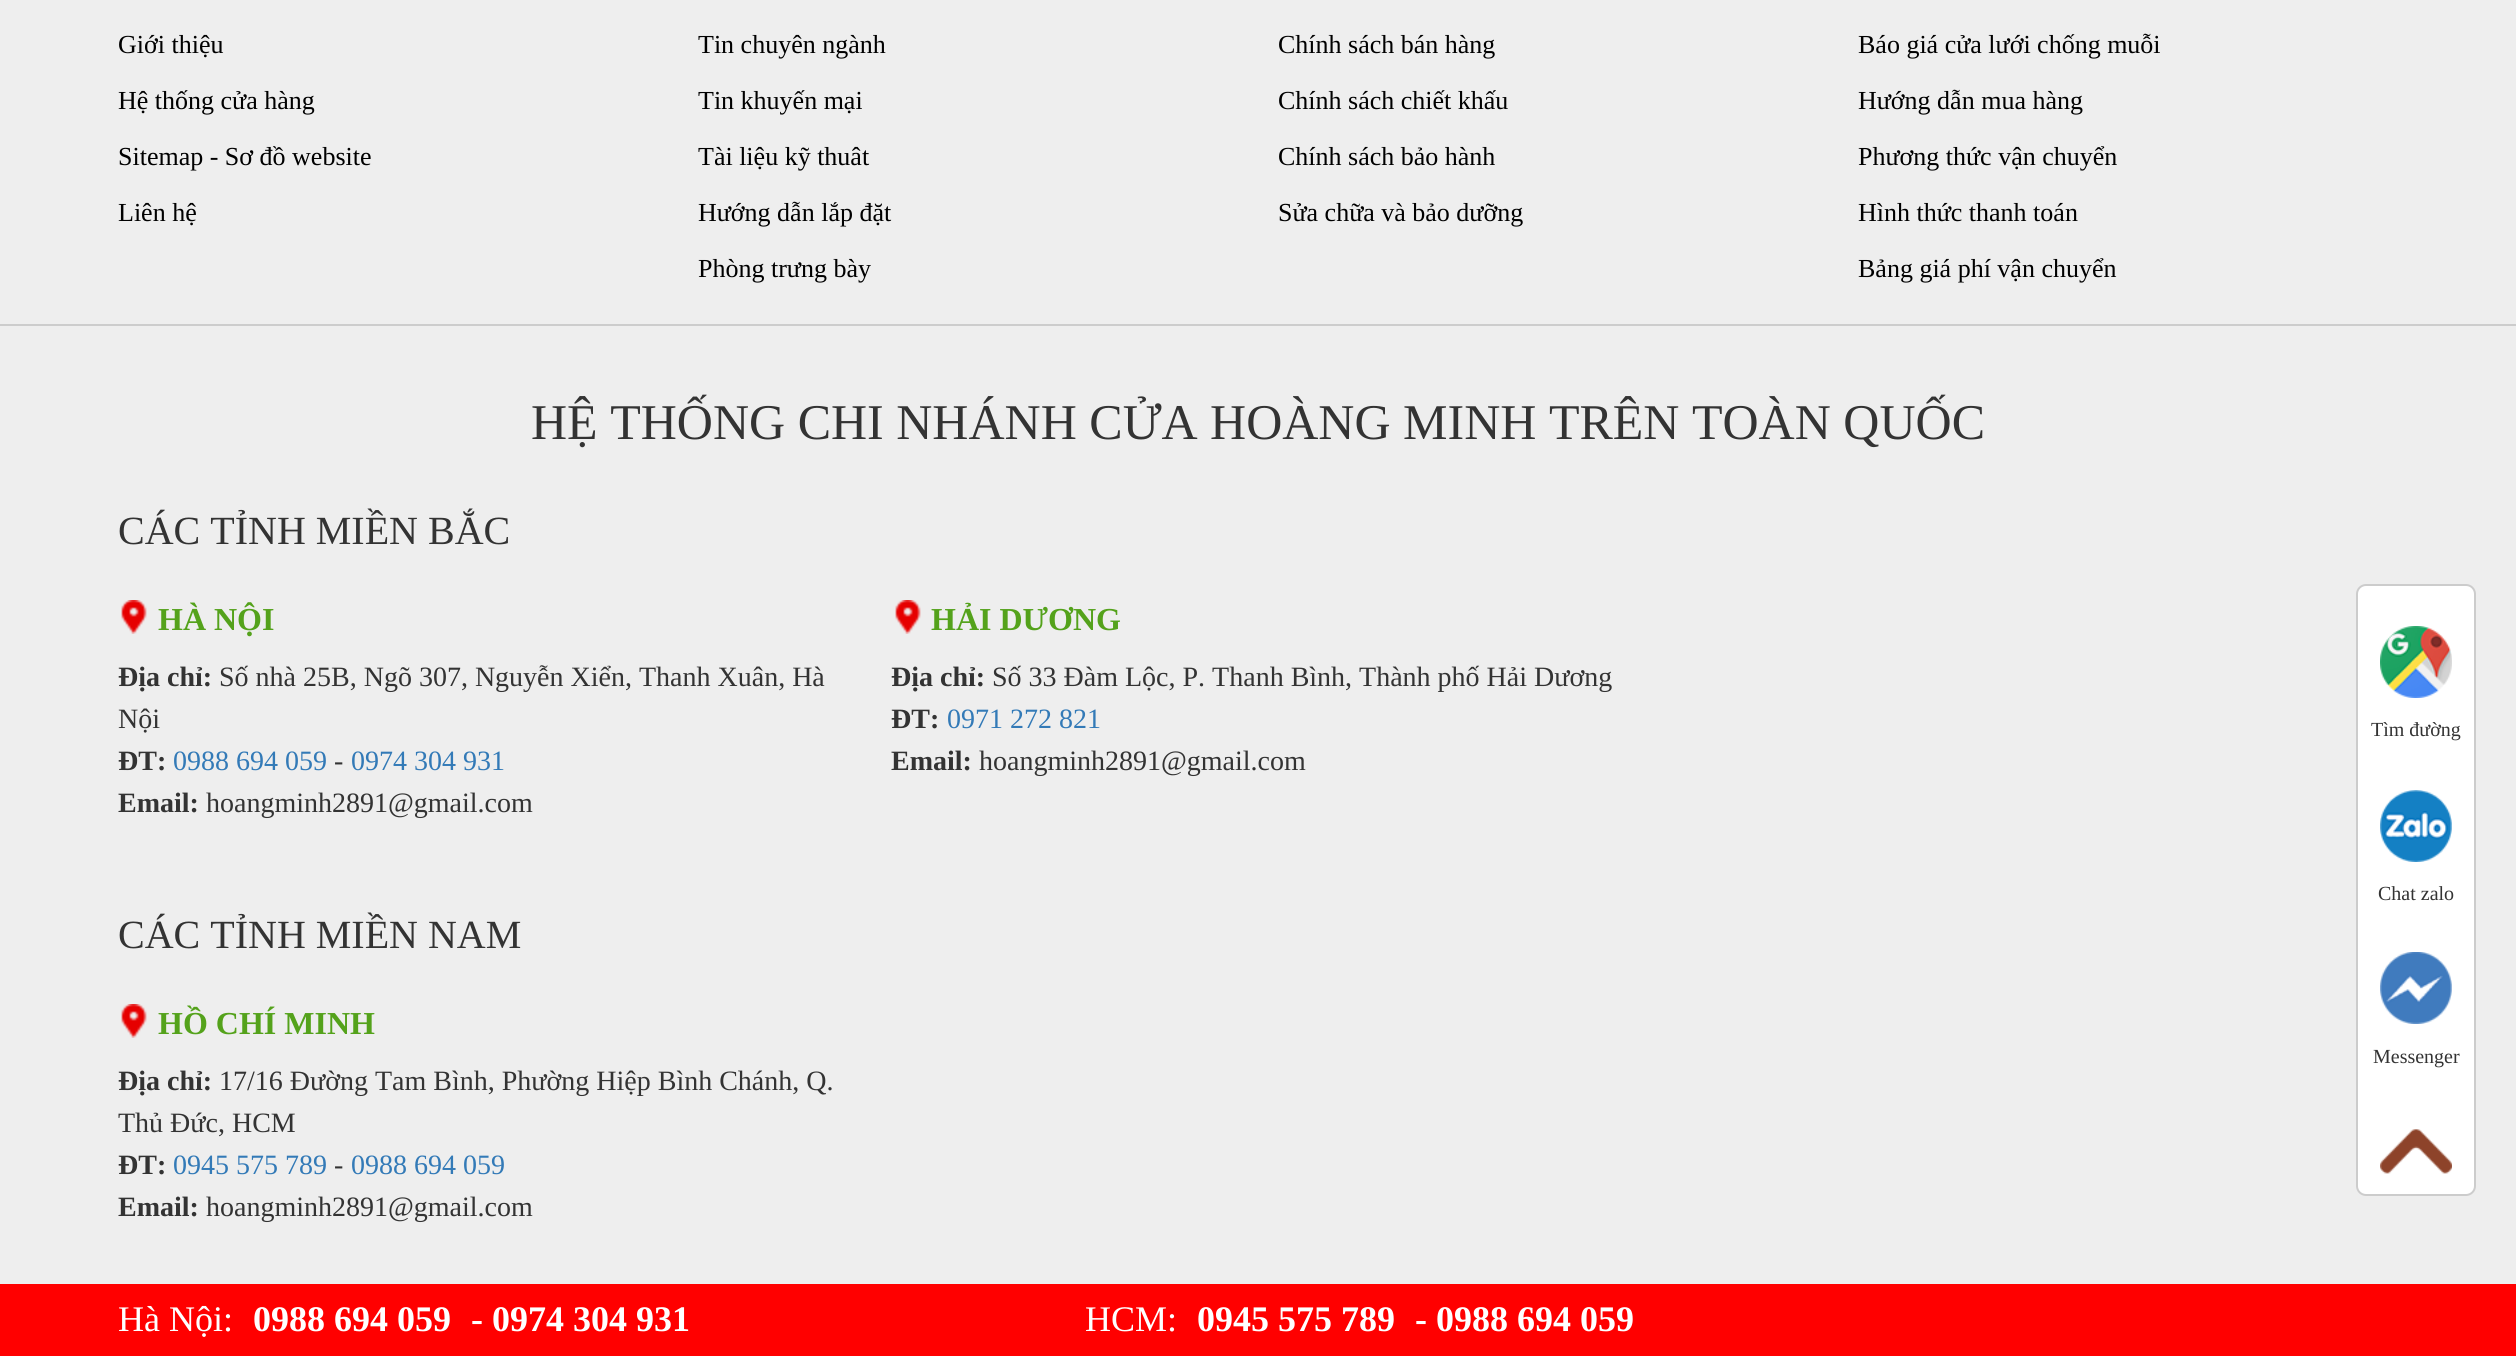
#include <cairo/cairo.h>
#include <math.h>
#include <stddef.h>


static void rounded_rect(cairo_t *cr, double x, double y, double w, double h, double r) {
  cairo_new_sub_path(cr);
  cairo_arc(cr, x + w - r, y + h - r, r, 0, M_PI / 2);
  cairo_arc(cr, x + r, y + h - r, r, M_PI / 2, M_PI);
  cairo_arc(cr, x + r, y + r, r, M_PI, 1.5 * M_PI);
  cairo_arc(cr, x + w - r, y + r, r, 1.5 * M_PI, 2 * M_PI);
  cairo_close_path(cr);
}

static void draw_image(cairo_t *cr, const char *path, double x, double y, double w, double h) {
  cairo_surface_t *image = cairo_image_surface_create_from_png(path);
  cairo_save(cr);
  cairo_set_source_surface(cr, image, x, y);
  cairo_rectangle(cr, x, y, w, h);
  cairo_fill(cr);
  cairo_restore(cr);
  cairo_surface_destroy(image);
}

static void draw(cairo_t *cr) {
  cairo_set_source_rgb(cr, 238 / 255.0, 238 / 255.0, 238 / 255.0);
  cairo_paint(cr);
  cairo_set_source_rgb(cr, 204 / 255.0, 204 / 255.0, 204 / 255.0);
  cairo_rectangle(cr, 0, 324, 2516, 2);
  cairo_fill(cr);
  draw_image(cr, "images/1.png", 121, 600, 26, 34);
  draw_image(cr, "images/1.png", 895, 600, 26, 34);
  draw_image(cr, "images/1.png", 121, 1004, 26, 34);
  cairo_set_source_rgb(cr, 1, 1, 1);
  rounded_rect(cr, 2357, 585, 118, 610, 9);
  cairo_fill_preserve(cr);
  cairo_set_source_rgb(cr, 204 / 255.0, 204 / 255.0, 204 / 255.0);
  cairo_stroke(cr);
  draw_image(cr, "images/2.png", 2380, 626, 72, 72);
  draw_image(cr, "images/3.png", 2380, 790, 72, 72);
  draw_image(cr, "images/4.png", 2380, 952, 72, 72);
  draw_image(cr, "images/5.png", 2380, 1129, 72, 45);
  cairo_set_source_rgb(cr, 1, 0, 0);
  cairo_rectangle(cr, 0, 1284, 2516, 72);
  cairo_fill(cr);
  cairo_select_font_face(cr, "Liberation Serif", CAIRO_FONT_SLANT_NORMAL, CAIRO_FONT_WEIGHT_NORMAL);
  cairo_set_font_size(cr, 26);
  cairo_set_source_rgb(cr, 0, 0, 0);
  cairo_move_to(cr, 118, 53);
  cairo_show_text(cr, "Giới thiệu");
  cairo_move_to(cr, 118, 109);
  cairo_show_text(cr, "Hệ thống cửa hàng");
  cairo_move_to(cr, 118, 165);
  cairo_show_text(cr, "Sitemap - Sơ đồ website");
  cairo_move_to(cr, 118, 221);
  cairo_show_text(cr, "Liên hệ");
  cairo_move_to(cr, 698, 53);
  cairo_show_text(cr, "Tin chuyên ngành");
  cairo_move_to(cr, 698, 109);
  cairo_show_text(cr, "Tin khuyến mại");
  cairo_move_to(cr, 698, 165);
  cairo_show_text(cr, "Tài liệu kỹ thuât");
  cairo_move_to(cr, 698, 221);
  cairo_show_text(cr, "Hướng dẫn lắp đặt");
  cairo_move_to(cr, 698, 277);
  cairo_show_text(cr, "Phòng trưng bày");
  cairo_move_to(cr, 1278, 53);
  cairo_show_text(cr, "Chính sách bán hàng");
  cairo_move_to(cr, 1278, 109);
  cairo_show_text(cr, "Chính sách chiết khấu");
  cairo_move_to(cr, 1278, 165);
  cairo_show_text(cr, "Chính sách bảo hành");
  cairo_move_to(cr, 1278, 221);
  cairo_show_text(cr, "Sửa chữa và bảo dưỡng");
  cairo_move_to(cr, 1858, 53);
  cairo_show_text(cr, "Báo giá cửa lưới chống muỗi");
  cairo_move_to(cr, 1858, 109);
  cairo_show_text(cr, "Hướng dẫn mua hàng");
  cairo_move_to(cr, 1858, 165);
  cairo_show_text(cr, "Phương thức vận chuyển");
  cairo_move_to(cr, 1858, 221);
  cairo_show_text(cr, "Hình thức thanh toán");
  cairo_move_to(cr, 1858, 277);
  cairo_show_text(cr, "Bảng giá phí vận chuyển");
  cairo_set_font_size(cr, 50);
  cairo_set_source_rgb(cr, 51 / 255.0, 51 / 255.0, 51 / 255.0);
  cairo_move_to(cr, 531, 439);
  cairo_show_text(cr, "HỆ THỐNG CHI NHÁNH CỬA HOÀNG MINH TRÊN TOÀN QUỐC");
  cairo_set_font_size(cr, 40);
  cairo_move_to(cr, 118, 544);
  cairo_show_text(cr, "CÁC TỈNH MIỀN BẮC");
  cairo_select_font_face(cr, "Liberation Serif", CAIRO_FONT_SLANT_NORMAL, CAIRO_FONT_WEIGHT_BOLD);
  cairo_set_font_size(cr, 32);
  cairo_set_source_rgb(cr, 84 / 255.0, 162 / 255.0, 27 / 255.0);
  cairo_move_to(cr, 158, 630);
  cairo_show_text(cr, "HÀ NỘI");
  cairo_set_font_size(cr, 28);
  cairo_set_source_rgb(cr, 51 / 255.0, 51 / 255.0, 51 / 255.0);
  cairo_move_to(cr, 118, 686);
  cairo_show_text(cr, "Địa chỉ:");
  cairo_select_font_face(cr, "Liberation Serif", CAIRO_FONT_SLANT_NORMAL, CAIRO_FONT_WEIGHT_NORMAL);
  cairo_move_to(cr, 219, 686);
  cairo_show_text(cr, "Số nhà 25B, Ngõ 307, Nguyễn Xiển, Thanh Xuân, Hà");
  cairo_move_to(cr, 118, 728);
  cairo_show_text(cr, "Nội");
  cairo_select_font_face(cr, "Liberation Serif", CAIRO_FONT_SLANT_NORMAL, CAIRO_FONT_WEIGHT_BOLD);
  cairo_move_to(cr, 118, 770);
  cairo_show_text(cr, "ĐT:");
  cairo_select_font_face(cr, "Liberation Serif", CAIRO_FONT_SLANT_NORMAL, CAIRO_FONT_WEIGHT_NORMAL);
  cairo_set_source_rgb(cr, 51 / 255.0, 122 / 255.0, 183 / 255.0);
  cairo_move_to(cr, 173, 770);
  cairo_show_text(cr, "0988 694 059");
  cairo_set_source_rgb(cr, 51 / 255.0, 51 / 255.0, 51 / 255.0);
  cairo_move_to(cr, 334, 770);
  cairo_show_text(cr, "-");
  cairo_set_source_rgb(cr, 51 / 255.0, 122 / 255.0, 183 / 255.0);
  cairo_move_to(cr, 351, 770);
  cairo_show_text(cr, "0974 304 931");
  cairo_select_font_face(cr, "Liberation Serif", CAIRO_FONT_SLANT_NORMAL, CAIRO_FONT_WEIGHT_BOLD);
  cairo_set_source_rgb(cr, 51 / 255.0, 51 / 255.0, 51 / 255.0);
  cairo_move_to(cr, 118, 812);
  cairo_show_text(cr, "Email:");
  cairo_select_font_face(cr, "Liberation Serif", CAIRO_FONT_SLANT_NORMAL, CAIRO_FONT_WEIGHT_NORMAL);
  cairo_move_to(cr, 206, 812);
  cairo_show_text(cr, "hoangminh2891@gmail.com");
  cairo_select_font_face(cr, "Liberation Serif", CAIRO_FONT_SLANT_NORMAL, CAIRO_FONT_WEIGHT_BOLD);
  cairo_set_font_size(cr, 32);
  cairo_set_source_rgb(cr, 84 / 255.0, 162 / 255.0, 27 / 255.0);
  cairo_move_to(cr, 931, 630);
  cairo_show_text(cr, "HẢI DƯƠNG");
  cairo_set_font_size(cr, 28);
  cairo_set_source_rgb(cr, 51 / 255.0, 51 / 255.0, 51 / 255.0);
  cairo_move_to(cr, 891, 686);
  cairo_show_text(cr, "Địa chỉ:");
  cairo_select_font_face(cr, "Liberation Serif", CAIRO_FONT_SLANT_NORMAL, CAIRO_FONT_WEIGHT_NORMAL);
  cairo_move_to(cr, 992, 686);
  cairo_show_text(cr, "Số 33 Đàm Lộc, P. Thanh Bình, Thành phố Hải Dương");
  cairo_select_font_face(cr, "Liberation Serif", CAIRO_FONT_SLANT_NORMAL, CAIRO_FONT_WEIGHT_BOLD);
  cairo_move_to(cr, 891, 728);
  cairo_show_text(cr, "ĐT:");
  cairo_select_font_face(cr, "Liberation Serif", CAIRO_FONT_SLANT_NORMAL, CAIRO_FONT_WEIGHT_NORMAL);
  cairo_set_source_rgb(cr, 51 / 255.0, 122 / 255.0, 183 / 255.0);
  cairo_move_to(cr, 947, 728);
  cairo_show_text(cr, "0971 272 821");
  cairo_select_font_face(cr, "Liberation Serif", CAIRO_FONT_SLANT_NORMAL, CAIRO_FONT_WEIGHT_BOLD);
  cairo_set_source_rgb(cr, 51 / 255.0, 51 / 255.0, 51 / 255.0);
  cairo_move_to(cr, 891, 770);
  cairo_show_text(cr, "Email:");
  cairo_select_font_face(cr, "Liberation Serif", CAIRO_FONT_SLANT_NORMAL, CAIRO_FONT_WEIGHT_NORMAL);
  cairo_move_to(cr, 979, 770);
  cairo_show_text(cr, "hoangminh2891@gmail.com");
  cairo_set_font_size(cr, 40);
  cairo_move_to(cr, 118, 948);
  cairo_show_text(cr, "CÁC TỈNH MIỀN NAM");
  cairo_select_font_face(cr, "Liberation Serif", CAIRO_FONT_SLANT_NORMAL, CAIRO_FONT_WEIGHT_BOLD);
  cairo_set_font_size(cr, 32);
  cairo_set_source_rgb(cr, 84 / 255.0, 162 / 255.0, 27 / 255.0);
  cairo_move_to(cr, 158, 1034);
  cairo_show_text(cr, "HỒ CHÍ MINH");
  cairo_set_font_size(cr, 28);
  cairo_set_source_rgb(cr, 51 / 255.0, 51 / 255.0, 51 / 255.0);
  cairo_move_to(cr, 118, 1090);
  cairo_show_text(cr, "Địa chỉ:");
  cairo_select_font_face(cr, "Liberation Serif", CAIRO_FONT_SLANT_NORMAL, CAIRO_FONT_WEIGHT_NORMAL);
  cairo_move_to(cr, 219, 1090);
  cairo_show_text(cr, "17/16 Đường Tam Bình, Phường Hiệp Bình Chánh, Q.");
  cairo_move_to(cr, 118, 1132);
  cairo_show_text(cr, "Thủ Đức, HCM");
  cairo_select_font_face(cr, "Liberation Serif", CAIRO_FONT_SLANT_NORMAL, CAIRO_FONT_WEIGHT_BOLD);
  cairo_move_to(cr, 118, 1174);
  cairo_show_text(cr, "ĐT:");
  cairo_select_font_face(cr, "Liberation Serif", CAIRO_FONT_SLANT_NORMAL, CAIRO_FONT_WEIGHT_NORMAL);
  cairo_set_source_rgb(cr, 51 / 255.0, 122 / 255.0, 183 / 255.0);
  cairo_move_to(cr, 173, 1174);
  cairo_show_text(cr, "0945 575 789");
  cairo_set_source_rgb(cr, 51 / 255.0, 51 / 255.0, 51 / 255.0);
  cairo_move_to(cr, 334, 1174);
  cairo_show_text(cr, "-");
  cairo_set_source_rgb(cr, 51 / 255.0, 122 / 255.0, 183 / 255.0);
  cairo_move_to(cr, 351, 1174);
  cairo_show_text(cr, "0988 694 059");
  cairo_select_font_face(cr, "Liberation Serif", CAIRO_FONT_SLANT_NORMAL, CAIRO_FONT_WEIGHT_BOLD);
  cairo_set_source_rgb(cr, 51 / 255.0, 51 / 255.0, 51 / 255.0);
  cairo_move_to(cr, 118, 1216);
  cairo_show_text(cr, "Email:");
  cairo_select_font_face(cr, "Liberation Serif", CAIRO_FONT_SLANT_NORMAL, CAIRO_FONT_WEIGHT_NORMAL);
  cairo_move_to(cr, 206, 1216);
  cairo_show_text(cr, "hoangminh2891@gmail.com");
  cairo_set_font_size(cr, 20);
  cairo_move_to(cr, 2371, 736);
  cairo_show_text(cr, "Tìm đường");
  cairo_move_to(cr, 2378, 900);
  cairo_show_text(cr, "Chat zalo");
  cairo_move_to(cr, 2373, 1063);
  cairo_show_text(cr, "Messenger");
  cairo_set_font_size(cr, 36);
  cairo_set_source_rgb(cr, 1, 1, 1);
  cairo_move_to(cr, 118, 1331);
  cairo_show_text(cr, "Hà Nội:");
  cairo_select_font_face(cr, "Liberation Serif", CAIRO_FONT_SLANT_NORMAL, CAIRO_FONT_WEIGHT_BOLD);
  cairo_move_to(cr, 253, 1331);
  cairo_show_text(cr, "0988 694 059");
  cairo_move_to(cr, 471, 1331);
  cairo_show_text(cr, "- 0974 304 931");
  cairo_select_font_face(cr, "Liberation Serif", CAIRO_FONT_SLANT_NORMAL, CAIRO_FONT_WEIGHT_NORMAL);
  cairo_move_to(cr, 1085, 1331);
  cairo_show_text(cr, "HCM:");
  cairo_select_font_face(cr, "Liberation Serif", CAIRO_FONT_SLANT_NORMAL, CAIRO_FONT_WEIGHT_BOLD);
  cairo_move_to(cr, 1197, 1331);
  cairo_show_text(cr, "0945 575 789");
  cairo_move_to(cr, 1415, 1331);
  cairo_show_text(cr, "- 0988 694 059");
}

int main(void) {
  cairo_surface_t *surface = cairo_image_surface_create(CAIRO_FORMAT_RGB24, 2516, 1356);
  cairo_t *cr = cairo_create(surface);
  cairo_font_options_t *options = cairo_font_options_create();
  cairo_font_options_set_hint_metrics(options, CAIRO_HINT_METRICS_OFF);
  cairo_font_options_set_hint_style(options, CAIRO_HINT_STYLE_NONE);
  cairo_set_font_options(cr, options);
  cairo_set_miter_limit(cr, 4);
  draw(cr);
  cairo_surface_write_to_png(surface, "out.png");
  cairo_font_options_destroy(options);
  cairo_destroy(cr);
  cairo_surface_destroy(surface);
  return 0;
}
